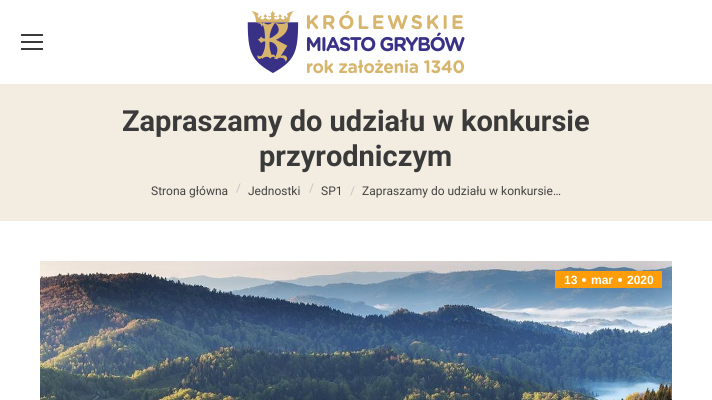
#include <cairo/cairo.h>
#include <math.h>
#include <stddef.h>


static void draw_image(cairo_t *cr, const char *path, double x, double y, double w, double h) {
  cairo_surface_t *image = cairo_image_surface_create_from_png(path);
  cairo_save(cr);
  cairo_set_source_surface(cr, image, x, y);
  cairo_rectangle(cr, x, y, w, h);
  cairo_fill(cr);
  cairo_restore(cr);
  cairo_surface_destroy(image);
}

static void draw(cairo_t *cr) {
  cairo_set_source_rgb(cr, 1, 1, 1);
  cairo_paint(cr);
  cairo_set_source_rgb(cr, 58 / 255.0, 58 / 255.0, 58 / 255.0);
  cairo_rectangle(cr, 21, 34, 22, 2);
  cairo_fill(cr);
  cairo_rectangle(cr, 21, 41, 22, 2);
  cairo_fill(cr);
  cairo_rectangle(cr, 21, 48, 22, 2);
  cairo_fill(cr);
  draw_image(cr, "images/1.png", 247, 10, 218, 64);
  cairo_set_source_rgb(cr, 242 / 255.0, 236 / 255.0, 225 / 255.0);
  cairo_rectangle(cr, 0, 84, 712, 137);
  cairo_fill(cr);
  draw_image(cr, "images/2.png", 40, 261, 632, 139);
  cairo_set_source_rgb(cr, 1, 157 / 255.0, 9 / 255.0);
  cairo_rectangle(cr, 555, 271, 107, 17);
  cairo_fill(cr);
  cairo_set_source_rgb(cr, 1, 1, 1);
  cairo_arc(cr, 584, 280, 2, 0, 2 * M_PI);
  cairo_fill(cr);
  cairo_arc(cr, 620, 280, 2, 0, 2 * M_PI);
  cairo_fill(cr);
  cairo_select_font_face(cr, "Roboto", CAIRO_FONT_SLANT_NORMAL, CAIRO_FONT_WEIGHT_BOLD);
  cairo_set_font_size(cr, 29);
  cairo_set_source_rgb(cr, 58 / 255.0, 58 / 255.0, 58 / 255.0);
  cairo_move_to(cr, 122, 131);
  cairo_show_text(cr, "Zapraszamy do udziału w konkursie");
  cairo_move_to(cr, 259, 166);
  cairo_show_text(cr, "przyrodniczym");
  cairo_select_font_face(cr, "Roboto", CAIRO_FONT_SLANT_NORMAL, CAIRO_FONT_WEIGHT_NORMAL);
  cairo_set_font_size(cr, 12);
  cairo_set_source_rgb(cr, 67 / 255.0, 67 / 255.0, 67 / 255.0);
  cairo_move_to(cr, 151, 195);
  cairo_show_text(cr, "Strona główna");
  cairo_set_source_rgb(cr, 198 / 255.0, 195 / 255.0, 189 / 255.0);
  cairo_move_to(cr, 236, 192);
  cairo_show_text(cr, "/");
  cairo_set_source_rgb(cr, 67 / 255.0, 67 / 255.0, 67 / 255.0);
  cairo_move_to(cr, 248, 195);
  cairo_show_text(cr, "Jednostki");
  cairo_set_source_rgb(cr, 198 / 255.0, 195 / 255.0, 189 / 255.0);
  cairo_move_to(cr, 309, 192);
  cairo_show_text(cr, "/");
  cairo_set_source_rgb(cr, 67 / 255.0, 67 / 255.0, 67 / 255.0);
  cairo_move_to(cr, 321, 195);
  cairo_show_text(cr, "SP1");
  cairo_set_source_rgb(cr, 198 / 255.0, 195 / 255.0, 189 / 255.0);
  cairo_move_to(cr, 350, 195);
  cairo_show_text(cr, "/");
  cairo_set_source_rgb(cr, 67 / 255.0, 67 / 255.0, 67 / 255.0);
  cairo_move_to(cr, 362, 195);
  cairo_show_text(cr, "Zapraszamy do udziału w konkursie…");
  cairo_select_font_face(cr, "Liberation Sans", CAIRO_FONT_SLANT_NORMAL, CAIRO_FONT_WEIGHT_BOLD);
  cairo_set_source_rgb(cr, 1, 1, 1);
  cairo_move_to(cr, 564, 284);
  cairo_show_text(cr, "13");
  cairo_move_to(cr, 591, 284);
  cairo_show_text(cr, "mar");
  cairo_move_to(cr, 627, 284);
  cairo_show_text(cr, "2020");
}

int main(void) {
  cairo_surface_t *surface = cairo_image_surface_create(CAIRO_FORMAT_RGB24, 712, 400);
  cairo_t *cr = cairo_create(surface);
  cairo_font_options_t *options = cairo_font_options_create();
  cairo_font_options_set_hint_metrics(options, CAIRO_HINT_METRICS_OFF);
  cairo_font_options_set_hint_style(options, CAIRO_HINT_STYLE_NONE);
  cairo_set_font_options(cr, options);
  cairo_set_miter_limit(cr, 4);
  draw(cr);
  cairo_surface_write_to_png(surface, "out.png");
  cairo_font_options_destroy(options);
  cairo_destroy(cr);
  cairo_surface_destroy(surface);
  return 0;
}
